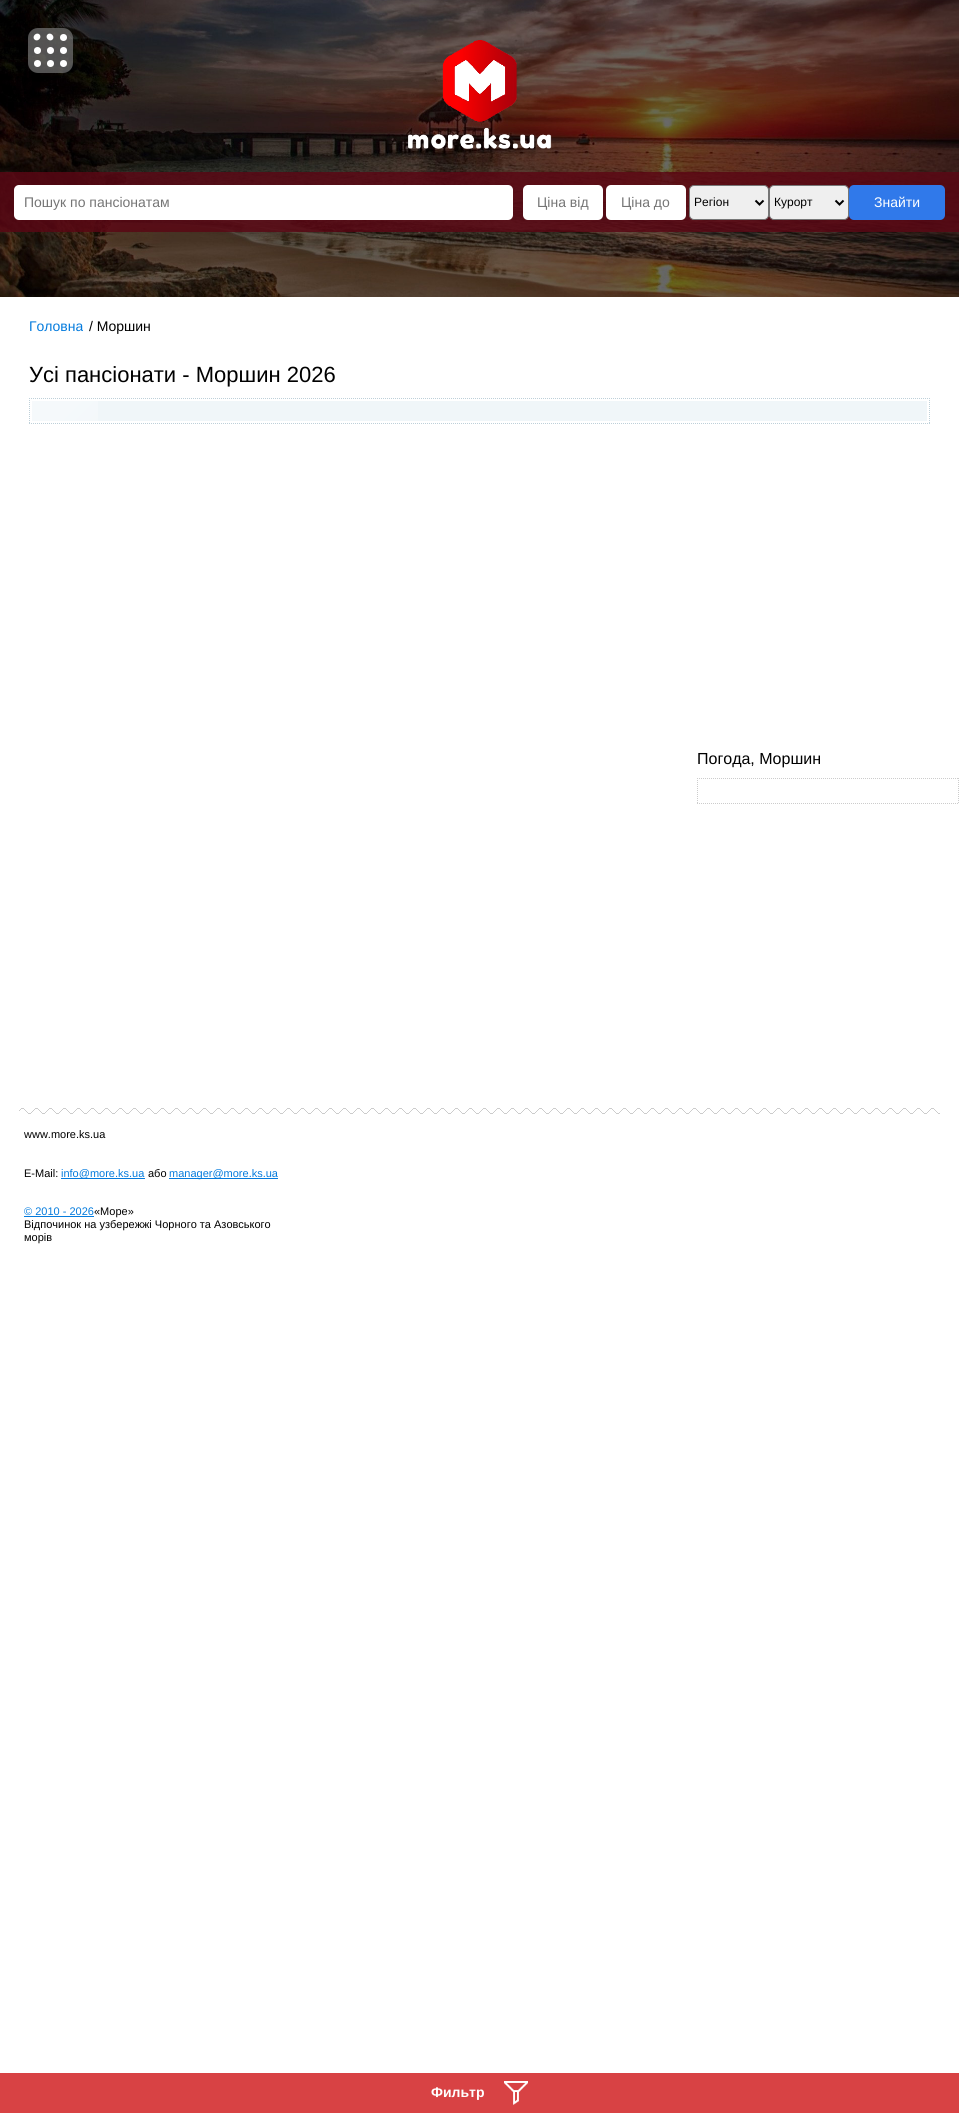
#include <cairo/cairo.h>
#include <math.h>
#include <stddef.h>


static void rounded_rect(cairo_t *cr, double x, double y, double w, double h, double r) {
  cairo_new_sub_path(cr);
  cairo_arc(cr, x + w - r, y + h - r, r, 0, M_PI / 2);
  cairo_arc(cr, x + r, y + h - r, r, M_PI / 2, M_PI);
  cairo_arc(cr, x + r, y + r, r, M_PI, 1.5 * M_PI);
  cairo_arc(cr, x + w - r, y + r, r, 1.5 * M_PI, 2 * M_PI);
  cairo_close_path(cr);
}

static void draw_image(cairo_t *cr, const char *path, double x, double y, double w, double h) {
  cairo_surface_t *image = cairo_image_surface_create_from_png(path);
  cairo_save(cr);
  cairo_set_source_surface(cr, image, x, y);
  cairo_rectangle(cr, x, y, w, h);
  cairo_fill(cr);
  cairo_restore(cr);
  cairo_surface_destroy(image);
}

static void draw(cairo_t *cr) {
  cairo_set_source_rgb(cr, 1, 1, 1);
  cairo_paint(cr);
  draw_image(cr, "images/1.png", 0, 0, 959, 297);
  cairo_set_source_rgba(cr, 128 / 255.0, 128 / 255.0, 128 / 255.0, 0.64);
  rounded_rect(cr, 28, 28, 45, 45, 10);
  cairo_fill(cr);
  cairo_set_source_rgb(cr, 1, 1, 1);
  cairo_new_path(cr);
  cairo_move_to(cr, 39.5, 34.5);
  cairo_curve_to(cr, 42.5, 37.5, 37.5, 42.5, 34.5, 39.5);
  cairo_curve_to(cr, 31.5, 36.5, 36.5, 31.5, 39.5, 34.5);
  cairo_close_path(cr);
  cairo_move_to(cr, 47.5, 34.5);
  cairo_curve_to(cr, 50.5, 31.5, 55.5, 36.5, 52.5, 39.5);
  cairo_curve_to(cr, 49.5, 42.5, 44.5, 37.5, 47.5, 34.5);
  cairo_close_path(cr);
  cairo_fill(cr);
  cairo_arc(cr, 63.5, 37.5, 3.5, 0, 2 * M_PI);
  cairo_fill(cr);
  cairo_arc(cr, 37.5, 50.5, 3.5, 0, 2 * M_PI);
  cairo_fill(cr);
  cairo_arc(cr, 50.5, 50.5, 3.5, 0, 2 * M_PI);
  cairo_fill(cr);
  cairo_arc(cr, 63.5, 50.5, 3.5, 0, 2 * M_PI);
  cairo_fill(cr);
  cairo_arc(cr, 37.5, 63.5, 3.5, 0, 2 * M_PI);
  cairo_fill(cr);
  cairo_arc(cr, 50.5, 63.5, 3.5, 0, 2 * M_PI);
  cairo_fill(cr);
  cairo_arc(cr, 63.5, 63.5, 3.5, 0, 2 * M_PI);
  cairo_fill(cr);
  draw_image(cr, "images/2.png", 408, 40, 144, 109);
  cairo_set_source_rgba(cr, 91 / 255.0, 7 / 255.0, 20 / 255.0, 0.82);
  cairo_rectangle(cr, 0, 172, 959, 60);
  cairo_fill(cr);
  cairo_set_source_rgb(cr, 1, 1, 1);
  rounded_rect(cr, 14, 185, 499, 35, 5);
  cairo_fill(cr);
  rounded_rect(cr, 523, 185, 80, 35, 5);
  cairo_fill(cr);
  rounded_rect(cr, 606, 185, 80, 35, 5);
  cairo_fill(cr);
  cairo_set_source_rgb(cr, 239 / 255.0, 239 / 255.0, 239 / 255.0);
  rounded_rect(cr, 689.5, 185.5, 79, 34, 4.5);
  cairo_fill_preserve(cr);
  cairo_set_source_rgb(cr, 118 / 255.0, 118 / 255.0, 118 / 255.0);
  cairo_set_line_width(cr, 1);
  cairo_stroke(cr);
  cairo_new_path(cr);
  cairo_move_to(cr, 755.5, 200.5);
  cairo_line_to(cr, 759.5, 204.5);
  cairo_line_to(cr, 763.5, 200.5);
  cairo_set_source_rgb(cr, 0, 0, 0);
  cairo_set_line_width(cr, 2);
  cairo_stroke(cr);
  cairo_set_source_rgb(cr, 239 / 255.0, 239 / 255.0, 239 / 255.0);
  rounded_rect(cr, 769.5, 185.5, 79, 34, 4.5);
  cairo_fill_preserve(cr);
  cairo_set_source_rgb(cr, 118 / 255.0, 118 / 255.0, 118 / 255.0);
  cairo_set_line_width(cr, 1);
  cairo_stroke(cr);
  cairo_new_path(cr);
  cairo_move_to(cr, 835.5, 200.5);
  cairo_line_to(cr, 839.5, 204.5);
  cairo_line_to(cr, 843.5, 200.5);
  cairo_set_source_rgb(cr, 0, 0, 0);
  cairo_set_line_width(cr, 2);
  cairo_stroke(cr);
  cairo_set_source_rgb(cr, 48 / 255.0, 121 / 255.0, 234 / 255.0);
  rounded_rect(cr, 849, 185, 96, 35, 5);
  cairo_fill(cr);
  cairo_new_path(cr);
  cairo_move_to(cr, 29, 398.5);
  cairo_line_to(cr, 930, 398.5);
  cairo_set_source_rgb(cr, 190 / 255.0, 208 / 255.0, 217 / 255.0);
  cairo_set_line_width(cr, 1);
  cairo_set_dash(cr, (double[]){1, 1}, 2, 0);
  cairo_stroke(cr);
  cairo_new_path(cr);
  cairo_move_to(cr, 929.5, 398);
  cairo_line_to(cr, 929.5, 424);
  cairo_stroke(cr);
  cairo_new_path(cr);
  cairo_move_to(cr, 29, 423.5);
  cairo_line_to(cr, 930, 423.5);
  cairo_stroke(cr);
  cairo_new_path(cr);
  cairo_move_to(cr, 29.5, 398);
  cairo_line_to(cr, 29.5, 424);
  cairo_stroke(cr);
  cairo_set_source_rgb(cr, 240 / 255.0, 246 / 255.0, 249 / 255.0);
  cairo_rectangle(cr, 32, 401, 895, 20);
  cairo_fill(cr);
  draw_image(cr, "images/3.png", 32, 401, 66, 20);
  cairo_new_path(cr);
  cairo_move_to(cr, 697, 778.5);
  cairo_line_to(cr, 959, 778.5);
  cairo_set_source_rgb(cr, 204 / 255.0, 204 / 255.0, 204 / 255.0);
  cairo_stroke(cr);
  cairo_new_path(cr);
  cairo_move_to(cr, 958.5, 778);
  cairo_line_to(cr, 958.5, 804);
  cairo_stroke(cr);
  cairo_new_path(cr);
  cairo_move_to(cr, 697, 803.5);
  cairo_line_to(cr, 959, 803.5);
  cairo_stroke(cr);
  cairo_new_path(cr);
  cairo_move_to(cr, 697.5, 778);
  cairo_line_to(cr, 697.5, 804);
  cairo_stroke(cr);
  cairo_set_source_rgb(cr, 216 / 255.0, 66 / 255.0, 68 / 255.0);
  cairo_rectangle(cr, 0, 2073, 959, 40);
  cairo_fill(cr);
  draw_image(cr, "images/4.png", 504, 2081, 24, 24);
  draw_image(cr, "images/5.png", 19, 1108, 921, 6);
  cairo_set_source_rgb(cr, 4 / 255.0, 123 / 255.0, 221 / 255.0);
  cairo_rectangle(cr, 61, 1178, 84, 1);
  cairo_fill(cr);
  cairo_rectangle(cr, 169, 1178, 109, 1);
  cairo_fill(cr);
  cairo_rectangle(cr, 24, 1216, 70, 1);
  cairo_fill(cr);
  cairo_select_font_face(cr, "Liberation Sans", CAIRO_FONT_SLANT_NORMAL, CAIRO_FONT_WEIGHT_NORMAL);
  cairo_set_font_size(cr, 14);
  cairo_set_source_rgb(cr, 117 / 255.0, 117 / 255.0, 117 / 255.0);
  cairo_move_to(cr, 24, 207);
  cairo_show_text(cr, "Пошук по пансіонатам");
  cairo_move_to(cr, 537, 207);
  cairo_show_text(cr, "Ціна від");
  cairo_move_to(cr, 621, 207);
  cairo_show_text(cr, "Ціна до");
  cairo_set_font_size(cr, 12);
  cairo_set_source_rgb(cr, 0, 0, 0);
  cairo_move_to(cr, 694, 206);
  cairo_show_text(cr, "Регіон");
  cairo_move_to(cr, 774, 206);
  cairo_show_text(cr, "Курорт");
  cairo_set_font_size(cr, 14);
  cairo_set_source_rgb(cr, 1, 1, 1);
  cairo_move_to(cr, 874, 207);
  cairo_show_text(cr, "Знайти");
  cairo_set_source_rgb(cr, 4 / 255.0, 123 / 255.0, 221 / 255.0);
  cairo_move_to(cr, 29, 331);
  cairo_show_text(cr, "Головна");
  cairo_set_source_rgb(cr, 0, 0, 0);
  cairo_move_to(cr, 89, 331);
  cairo_show_text(cr, "/ Моршин");
  cairo_set_font_size(cr, 22);
  cairo_move_to(cr, 29, 382);
  cairo_show_text(cr, "Усі пансіонати - Моршин 2026");
  cairo_set_font_size(cr, 16);
  cairo_move_to(cr, 697, 764);
  cairo_show_text(cr, "Погода, Моршин");
  cairo_select_font_face(cr, "Liberation Sans", CAIRO_FONT_SLANT_NORMAL, CAIRO_FONT_WEIGHT_BOLD);
  cairo_set_font_size(cr, 14);
  cairo_set_source_rgb(cr, 1, 1, 1);
  cairo_move_to(cr, 431, 2097);
  cairo_show_text(cr, "Фильтр");
  cairo_select_font_face(cr, "Liberation Sans", CAIRO_FONT_SLANT_NORMAL, CAIRO_FONT_WEIGHT_NORMAL);
  cairo_set_font_size(cr, 11);
  cairo_set_source_rgb(cr, 0, 0, 0);
  cairo_move_to(cr, 24, 1138);
  cairo_show_text(cr, "www.more.ks.ua");
  cairo_move_to(cr, 24, 1177);
  cairo_show_text(cr, "E-Mail:");
  cairo_set_source_rgb(cr, 4 / 255.0, 123 / 255.0, 221 / 255.0);
  cairo_move_to(cr, 61, 1177);
  cairo_show_text(cr, "info@more.ks.ua");
  cairo_set_source_rgb(cr, 0, 0, 0);
  cairo_move_to(cr, 148, 1177);
  cairo_show_text(cr, "або");
  cairo_set_source_rgb(cr, 4 / 255.0, 123 / 255.0, 221 / 255.0);
  cairo_move_to(cr, 169, 1177);
  cairo_show_text(cr, "manager@more.ks.ua");
  cairo_move_to(cr, 24, 1215);
  cairo_show_text(cr, "© 2010 - 2026");
  cairo_set_source_rgb(cr, 0, 0, 0);
  cairo_move_to(cr, 94, 1215);
  cairo_show_text(cr, "«Море»");
  cairo_move_to(cr, 24, 1228);
  cairo_show_text(cr, "Відпочинок на узбережжі Чорного та Азовського");
  cairo_move_to(cr, 24, 1241);
  cairo_show_text(cr, "морів");
}

int main(void) {
  cairo_surface_t *surface = cairo_image_surface_create(CAIRO_FORMAT_RGB24, 959, 2113);
  cairo_t *cr = cairo_create(surface);
  cairo_font_options_t *options = cairo_font_options_create();
  cairo_font_options_set_hint_metrics(options, CAIRO_HINT_METRICS_OFF);
  cairo_font_options_set_hint_style(options, CAIRO_HINT_STYLE_NONE);
  cairo_set_font_options(cr, options);
  cairo_set_miter_limit(cr, 4);
  draw(cr);
  cairo_surface_write_to_png(surface, "out.png");
  cairo_font_options_destroy(options);
  cairo_destroy(cr);
  cairo_surface_destroy(surface);
  return 0;
}
